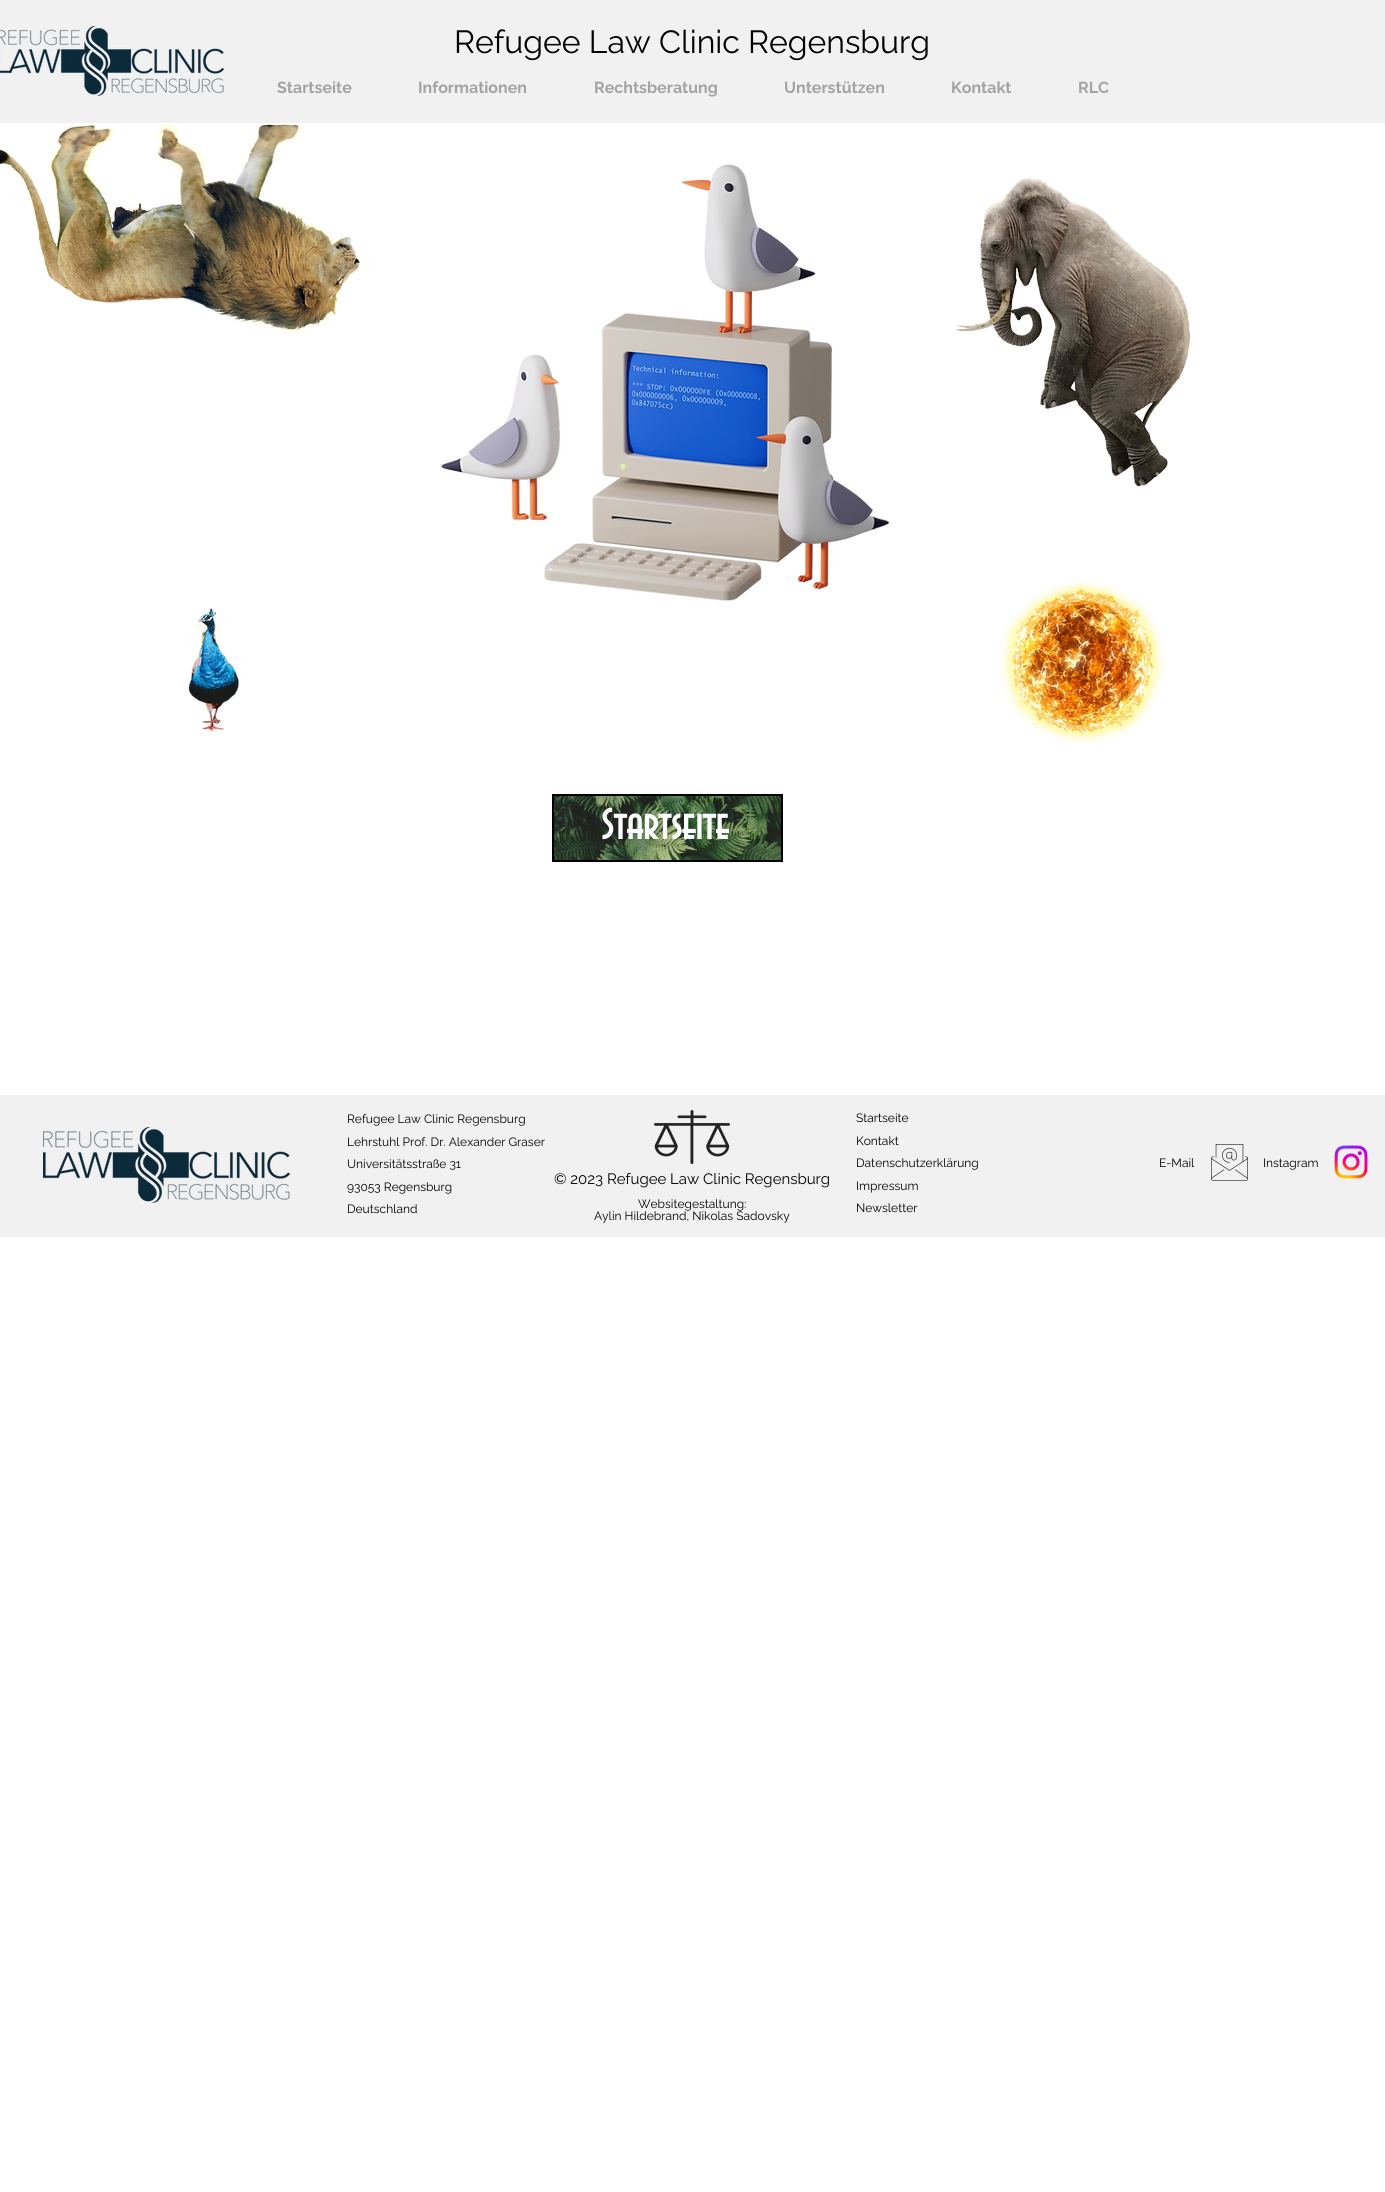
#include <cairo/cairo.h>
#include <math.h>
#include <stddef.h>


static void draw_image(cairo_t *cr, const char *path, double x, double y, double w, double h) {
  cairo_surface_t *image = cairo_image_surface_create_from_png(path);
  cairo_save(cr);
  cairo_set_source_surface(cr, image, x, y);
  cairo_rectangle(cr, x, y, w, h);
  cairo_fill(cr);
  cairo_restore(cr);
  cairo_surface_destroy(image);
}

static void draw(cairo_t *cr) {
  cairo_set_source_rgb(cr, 1, 1, 1);
  cairo_paint(cr);
  cairo_set_source_rgb(cr, 241 / 255.0, 241 / 255.0, 241 / 255.0);
  cairo_rectangle(cr, 0, 0, 1385, 123);
  cairo_fill(cr);
  draw_image(cr, "images/1.png", 0, 26, 224, 70);
  draw_image(cr, "images/2.png", 0, 124, 360, 207);
  draw_image(cr, "images/3.png", 441, 164, 449, 437);
  draw_image(cr, "images/4.png", 956, 178, 235, 309);
  draw_image(cr, "images/5.png", 188, 608, 51, 124);
  draw_image(cr, "images/6.png", 1000, 580, 165, 163);
  draw_image(cr, "images/7.png", 554, 796, 227, 64);
  cairo_rectangle(cr, 553, 795, 229, 66);
  cairo_set_source_rgb(cr, 0, 0, 0);
  cairo_stroke(cr);
  cairo_set_source_rgb(cr, 241 / 255.0, 241 / 255.0, 241 / 255.0);
  cairo_rectangle(cr, 0, 1095, 1385, 142);
  cairo_fill(cr);
  draw_image(cr, "images/8.png", 43, 1127, 247, 76);
  draw_image(cr, "images/9.png", 1211, 1144, 37, 37);
  draw_image(cr, "images/10.png", 1334, 1145, 34, 34);
  draw_image(cr, "images/11.png", 654, 1110, 76, 54);
  cairo_select_font_face(cr, "Raleway", CAIRO_FONT_SLANT_NORMAL, CAIRO_FONT_WEIGHT_NORMAL);
  cairo_set_font_size(cr, 32);
  cairo_set_source_rgb(cr, 0, 0, 0);
  cairo_move_to(cr, 454, 53);
  cairo_show_text(cr, "Refugee Law Clinic Regensburg");
  cairo_select_font_face(cr, "Raleway", CAIRO_FONT_SLANT_NORMAL, CAIRO_FONT_WEIGHT_BOLD);
  cairo_set_font_size(cr, 16);
  cairo_set_source_rgb(cr, 163 / 255.0, 163 / 255.0, 163 / 255.0);
  cairo_move_to(cr, 277, 93);
  cairo_show_text(cr, "Startseite");
  cairo_move_to(cr, 418, 93);
  cairo_show_text(cr, "Informationen");
  cairo_move_to(cr, 594, 93);
  cairo_show_text(cr, "Rechtsberatung");
  cairo_move_to(cr, 784, 93);
  cairo_show_text(cr, "Unterstützen");
  cairo_move_to(cr, 951, 93);
  cairo_show_text(cr, "Kontakt");
  cairo_move_to(cr, 1078, 93);
  cairo_show_text(cr, "RLC");
  cairo_select_font_face(cr, "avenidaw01", CAIRO_FONT_SLANT_NORMAL, CAIRO_FONT_WEIGHT_BOLD);
  cairo_set_font_size(cr, 45);
  cairo_set_source_rgb(cr, 1, 1, 1);
  cairo_move_to(cr, 601, 839);
  cairo_show_text(cr, "Startseite");
  cairo_select_font_face(cr, "Raleway", CAIRO_FONT_SLANT_NORMAL, CAIRO_FONT_WEIGHT_NORMAL);
  cairo_set_font_size(cr, 12);
  cairo_set_source_rgb(cr, 0, 0, 0);
  cairo_move_to(cr, 347, 1123);
  cairo_show_text(cr, "Refugee Law Clinic Regensburg");
  cairo_move_to(cr, 347, 1146);
  cairo_show_text(cr, "Lehrstuhl Prof. Dr. Alexander Graser");
  cairo_move_to(cr, 347, 1168);
  cairo_show_text(cr, "Universitätsstraße 31");
  cairo_move_to(cr, 347, 1191);
  cairo_show_text(cr, "93053 Regensburg");
  cairo_move_to(cr, 347, 1213);
  cairo_show_text(cr, "Deutschland");
  cairo_move_to(cr, 856, 1122);
  cairo_show_text(cr, "Startseite");
  cairo_move_to(cr, 856, 1145);
  cairo_show_text(cr, "Kontakt");
  cairo_move_to(cr, 856, 1167);
  cairo_show_text(cr, "Datenschutzerklärung");
  cairo_move_to(cr, 856, 1190);
  cairo_show_text(cr, "Impressum");
  cairo_move_to(cr, 856, 1212);
  cairo_show_text(cr, "Newsletter");
  cairo_move_to(cr, 1159, 1167);
  cairo_show_text(cr, "E-Mail");
  cairo_move_to(cr, 1263, 1167);
  cairo_show_text(cr, "Instagram");
  cairo_set_font_size(cr, 15);
  cairo_move_to(cr, 554, 1184);
  cairo_show_text(cr, "© 2023 Refugee Law Clinic Regensburg");
  cairo_set_font_size(cr, 12);
  cairo_move_to(cr, 638, 1208);
  cairo_show_text(cr, "Websitegestaltung:");
  cairo_move_to(cr, 594, 1220);
  cairo_show_text(cr, "Aylin Hildebrand, Nikolas Sadovsky");
}

int main(void) {
  cairo_surface_t *surface = cairo_image_surface_create(CAIRO_FORMAT_RGB24, 1385, 2192);
  cairo_t *cr = cairo_create(surface);
  cairo_font_options_t *options = cairo_font_options_create();
  cairo_font_options_set_hint_metrics(options, CAIRO_HINT_METRICS_OFF);
  cairo_font_options_set_hint_style(options, CAIRO_HINT_STYLE_NONE);
  cairo_set_font_options(cr, options);
  cairo_set_miter_limit(cr, 4);
  draw(cr);
  cairo_surface_write_to_png(surface, "out.png");
  cairo_font_options_destroy(options);
  cairo_destroy(cr);
  cairo_surface_destroy(surface);
  return 0;
}
